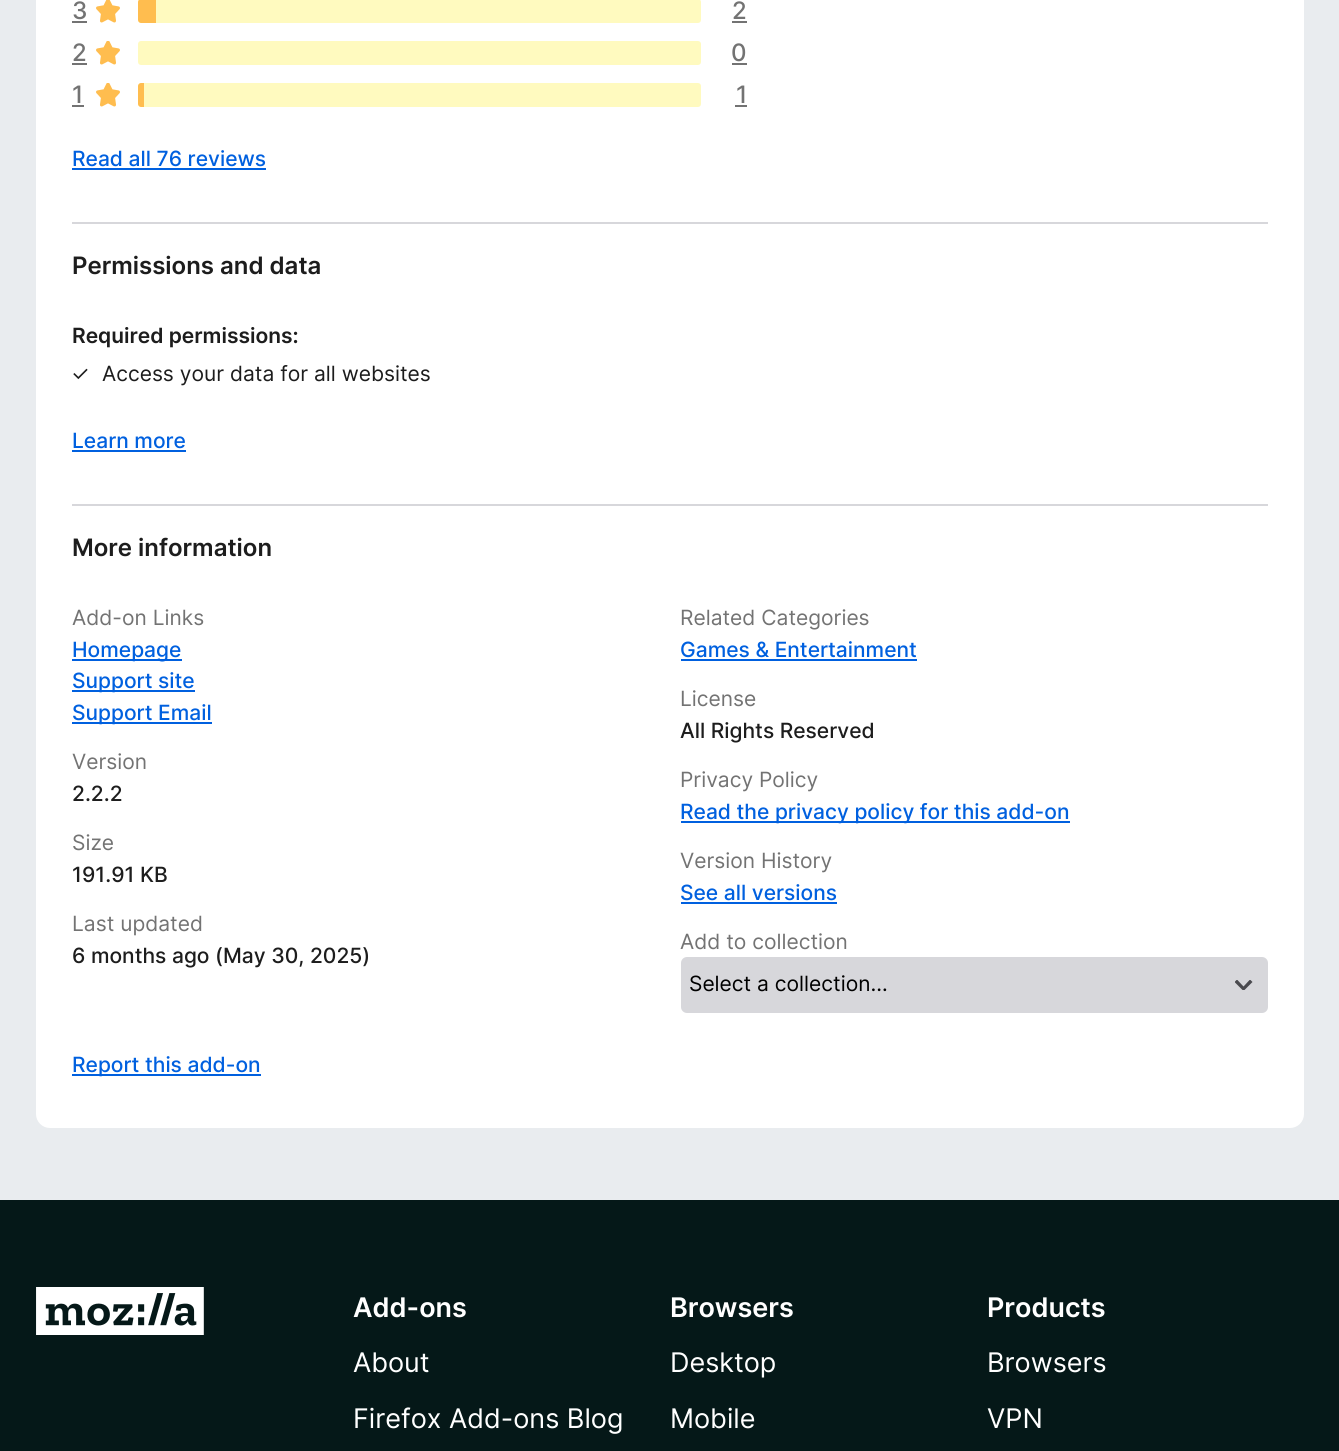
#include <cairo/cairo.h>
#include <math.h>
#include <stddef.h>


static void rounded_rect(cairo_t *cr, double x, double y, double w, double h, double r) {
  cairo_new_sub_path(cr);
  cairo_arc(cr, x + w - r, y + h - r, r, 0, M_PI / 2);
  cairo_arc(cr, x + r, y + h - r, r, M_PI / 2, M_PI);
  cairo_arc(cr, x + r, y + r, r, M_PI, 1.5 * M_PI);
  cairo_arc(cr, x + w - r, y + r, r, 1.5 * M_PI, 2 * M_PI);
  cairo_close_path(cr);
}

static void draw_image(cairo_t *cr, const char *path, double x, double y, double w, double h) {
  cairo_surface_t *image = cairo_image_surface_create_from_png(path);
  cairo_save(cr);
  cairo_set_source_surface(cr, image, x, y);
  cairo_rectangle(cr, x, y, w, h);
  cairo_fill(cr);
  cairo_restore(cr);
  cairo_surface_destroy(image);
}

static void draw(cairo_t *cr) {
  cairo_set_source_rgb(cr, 233 / 255.0, 236 / 255.0, 239 / 255.0);
  cairo_paint(cr);
  cairo_set_source_rgb(cr, 1, 1, 1);
  rounded_rect(cr, 36, -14, 1268, 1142, 14);
  cairo_fill(cr);
  cairo_set_source_rgb(cr, 115 / 255.0, 115 / 255.0, 115 / 255.0);
  cairo_rectangle(cr, 72, 21, 15, 2);
  cairo_fill(cr);
  draw_image(cr, "images/1.png", 96, 0, 24, 23);
  cairo_set_source_rgb(cr, 1, 250 / 255.0, 191 / 255.0);
  rounded_rect(cr, 138, -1, 563, 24, 3);
  cairo_fill(cr);
  cairo_set_source_rgb(cr, 1, 189 / 255.0, 79 / 255.0);
  cairo_new_path(cr);
  cairo_move_to(cr, 141, -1);
  cairo_line_to(cr, 156, -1);
  cairo_line_to(cr, 156, 23);
  cairo_line_to(cr, 141, 23);
  cairo_curve_to(cr, 139.5, 23, 138, 21.5, 138, 20);
  cairo_line_to(cr, 138, 2);
  cairo_curve_to(cr, 138, 0.5, 139.5, -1, 141, -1);
  cairo_close_path(cr);
  cairo_fill(cr);
  cairo_set_source_rgb(cr, 115 / 255.0, 115 / 255.0, 115 / 255.0);
  cairo_rectangle(cr, 732, 21, 15, 2);
  cairo_fill(cr);
  cairo_rectangle(cr, 72, 63, 15, 2);
  cairo_fill(cr);
  draw_image(cr, "images/2.png", 96, 41, 24, 24);
  cairo_set_source_rgb(cr, 1, 250 / 255.0, 191 / 255.0);
  rounded_rect(cr, 138, 41, 563, 24, 3);
  cairo_fill(cr);
  cairo_set_source_rgb(cr, 115 / 255.0, 115 / 255.0, 115 / 255.0);
  cairo_rectangle(cr, 732, 63, 15, 2);
  cairo_fill(cr);
  cairo_rectangle(cr, 72, 105, 12, 2);
  cairo_fill(cr);
  draw_image(cr, "images/2.png", 96, 83, 24, 24);
  cairo_set_source_rgb(cr, 1, 250 / 255.0, 191 / 255.0);
  rounded_rect(cr, 138, 83, 563, 24, 3);
  cairo_fill(cr);
  cairo_set_source_rgb(cr, 1, 189 / 255.0, 79 / 255.0);
  cairo_new_path(cr);
  cairo_move_to(cr, 141, 83);
  cairo_line_to(cr, 144, 83);
  cairo_line_to(cr, 144, 107);
  cairo_line_to(cr, 141, 107);
  cairo_curve_to(cr, 139.5, 107, 138, 105.5, 138, 104);
  cairo_line_to(cr, 138, 86);
  cairo_curve_to(cr, 138, 84.5, 139.5, 83, 141, 83);
  cairo_close_path(cr);
  cairo_fill(cr);
  cairo_set_source_rgb(cr, 115 / 255.0, 115 / 255.0, 115 / 255.0);
  cairo_rectangle(cr, 735, 105, 12, 2);
  cairo_fill(cr);
  cairo_set_source_rgb(cr, 0, 96 / 255.0, 223 / 255.0);
  cairo_rectangle(cr, 72, 168, 194, 2);
  cairo_fill(cr);
  cairo_set_source_rgb(cr, 215 / 255.0, 215 / 255.0, 219 / 255.0);
  cairo_rectangle(cr, 72, 222, 1196, 2);
  cairo_fill(cr);
  cairo_set_source_rgb(cr, 0, 96 / 255.0, 223 / 255.0);
  cairo_rectangle(cr, 72, 450, 114, 2);
  cairo_fill(cr);
  cairo_set_source_rgb(cr, 215 / 255.0, 215 / 255.0, 219 / 255.0);
  cairo_rectangle(cr, 72, 504, 1196, 2);
  cairo_fill(cr);
  cairo_set_source_rgb(cr, 0, 96 / 255.0, 223 / 255.0);
  cairo_rectangle(cr, 72, 659, 110, 2);
  cairo_fill(cr);
  cairo_rectangle(cr, 72, 690, 123, 2);
  cairo_fill(cr);
  cairo_rectangle(cr, 72, 722, 140, 2);
  cairo_fill(cr);
  cairo_rectangle(cr, 681, 659, 236, 2);
  cairo_fill(cr);
  cairo_rectangle(cr, 681, 821, 389, 2);
  cairo_fill(cr);
  cairo_rectangle(cr, 681, 902, 156, 2);
  cairo_fill(cr);
  cairo_set_source_rgb(cr, 215 / 255.0, 215 / 255.0, 219 / 255.0);
  rounded_rect(cr, 681, 957, 587, 56, 6);
  cairo_fill(cr);
  cairo_save(cr);
  cairo_rectangle(cr, 1235, 980, 18, 10);
  cairo_clip(cr);
  cairo_set_source_rgb(cr, 74 / 255.0, 74 / 255.0, 79 / 255.0);
  cairo_set_fill_rule(cr, CAIRO_FILL_RULE_EVEN_ODD);
  cairo_new_path(cr);
  cairo_move_to(cr, 1250, 979.5);
  cairo_line_to(cr, 1243.5, 986.5);
  cairo_line_to(cr, 1237, 979.5);
  cairo_line_to(cr, 1234.5, 982);
  cairo_line_to(cr, 1243.5, 991);
  cairo_line_to(cr, 1252.5, 982);
  cairo_close_path(cr);
  cairo_fill(cr);
  cairo_restore(cr);
  cairo_set_source_rgb(cr, 0, 96 / 255.0, 223 / 255.0);
  cairo_rectangle(cr, 72, 1074, 189, 2);
  cairo_fill(cr);
  cairo_set_source_rgb(cr, 5 / 255.0, 24 / 255.0, 24 / 255.0);
  cairo_rectangle(cr, 0, 1200, 1339, 251);
  cairo_fill(cr);
  draw_image(cr, "images/3.png", 36, 1287, 168, 48);
  cairo_select_font_face(cr, "Inter Medium", CAIRO_FONT_SLANT_NORMAL, CAIRO_FONT_WEIGHT_NORMAL);
  cairo_set_font_size(cr, 24);
  cairo_set_source_rgb(cr, 115 / 255.0, 115 / 255.0, 115 / 255.0);
  cairo_move_to(cr, 72, 19);
  cairo_show_text(cr, "3");
  cairo_move_to(cr, 732, 19);
  cairo_show_text(cr, "2");
  cairo_move_to(cr, 72, 61);
  cairo_show_text(cr, "2");
  cairo_move_to(cr, 731, 61);
  cairo_show_text(cr, "0");
  cairo_move_to(cr, 72, 103);
  cairo_show_text(cr, "1");
  cairo_move_to(cr, 736, 103);
  cairo_show_text(cr, "1");
  cairo_set_font_size(cr, 21);
  cairo_set_source_rgb(cr, 0, 96 / 255.0, 223 / 255.0);
  cairo_move_to(cr, 72, 166);
  cairo_show_text(cr, "Read all 76 reviews");
  cairo_select_font_face(cr, "Inter SemiBold", CAIRO_FONT_SLANT_NORMAL, CAIRO_FONT_WEIGHT_NORMAL);
  cairo_set_font_size(cr, 24);
  cairo_set_source_rgb(cr, 29 / 255.0, 29 / 255.0, 29 / 255.0);
  cairo_move_to(cr, 72, 274);
  cairo_show_text(cr, "Permissions and data");
  cairo_set_font_size(cr, 21);
  cairo_move_to(cr, 72, 343);
  cairo_show_text(cr, "Required permissions:");
  cairo_select_font_face(cr, "Inter", CAIRO_FONT_SLANT_NORMAL, CAIRO_FONT_WEIGHT_NORMAL);
  cairo_move_to(cr, 71, 381);
  cairo_show_text(cr, "✓");
  cairo_move_to(cr, 102, 381);
  cairo_show_text(cr, "Access your data for all websites");
  cairo_select_font_face(cr, "Inter Medium", CAIRO_FONT_SLANT_NORMAL, CAIRO_FONT_WEIGHT_NORMAL);
  cairo_set_source_rgb(cr, 0, 96 / 255.0, 223 / 255.0);
  cairo_move_to(cr, 72, 448);
  cairo_show_text(cr, "Learn more");
  cairo_select_font_face(cr, "Inter SemiBold", CAIRO_FONT_SLANT_NORMAL, CAIRO_FONT_WEIGHT_NORMAL);
  cairo_set_font_size(cr, 24);
  cairo_set_source_rgb(cr, 29 / 255.0, 29 / 255.0, 29 / 255.0);
  cairo_move_to(cr, 72, 556);
  cairo_show_text(cr, "More information");
  cairo_select_font_face(cr, "Inter", CAIRO_FONT_SLANT_NORMAL, CAIRO_FONT_WEIGHT_NORMAL);
  cairo_set_font_size(cr, 21);
  cairo_set_source_rgb(cr, 115 / 255.0, 115 / 255.0, 115 / 255.0);
  cairo_move_to(cr, 72, 625);
  cairo_show_text(cr, "Add-on Links");
  cairo_select_font_face(cr, "Inter Medium", CAIRO_FONT_SLANT_NORMAL, CAIRO_FONT_WEIGHT_NORMAL);
  cairo_set_source_rgb(cr, 0, 96 / 255.0, 223 / 255.0);
  cairo_move_to(cr, 72, 657);
  cairo_show_text(cr, "Homepage");
  cairo_move_to(cr, 72, 688);
  cairo_show_text(cr, "Support site");
  cairo_move_to(cr, 72, 720);
  cairo_show_text(cr, "Support Email");
  cairo_select_font_face(cr, "Inter", CAIRO_FONT_SLANT_NORMAL, CAIRO_FONT_WEIGHT_NORMAL);
  cairo_set_source_rgb(cr, 115 / 255.0, 115 / 255.0, 115 / 255.0);
  cairo_move_to(cr, 680, 625);
  cairo_show_text(cr, "Related Categories");
  cairo_select_font_face(cr, "Inter Medium", CAIRO_FONT_SLANT_NORMAL, CAIRO_FONT_WEIGHT_NORMAL);
  cairo_set_source_rgb(cr, 0, 96 / 255.0, 223 / 255.0);
  cairo_move_to(cr, 680, 657);
  cairo_show_text(cr, "Games & Entertainment");
  cairo_select_font_face(cr, "Inter", CAIRO_FONT_SLANT_NORMAL, CAIRO_FONT_WEIGHT_NORMAL);
  cairo_set_source_rgb(cr, 115 / 255.0, 115 / 255.0, 115 / 255.0);
  cairo_move_to(cr, 680, 706);
  cairo_show_text(cr, "License");
  cairo_select_font_face(cr, "Inter Medium", CAIRO_FONT_SLANT_NORMAL, CAIRO_FONT_WEIGHT_NORMAL);
  cairo_set_source_rgb(cr, 29 / 255.0, 29 / 255.0, 29 / 255.0);
  cairo_move_to(cr, 680, 738);
  cairo_show_text(cr, "All Rights Reserved");
  cairo_select_font_face(cr, "Inter", CAIRO_FONT_SLANT_NORMAL, CAIRO_FONT_WEIGHT_NORMAL);
  cairo_set_source_rgb(cr, 115 / 255.0, 115 / 255.0, 115 / 255.0);
  cairo_move_to(cr, 72, 769);
  cairo_show_text(cr, "Version");
  cairo_select_font_face(cr, "Inter Medium", CAIRO_FONT_SLANT_NORMAL, CAIRO_FONT_WEIGHT_NORMAL);
  cairo_set_source_rgb(cr, 29 / 255.0, 29 / 255.0, 29 / 255.0);
  cairo_move_to(cr, 72, 801);
  cairo_show_text(cr, "2.2.2");
  cairo_select_font_face(cr, "Inter", CAIRO_FONT_SLANT_NORMAL, CAIRO_FONT_WEIGHT_NORMAL);
  cairo_set_source_rgb(cr, 115 / 255.0, 115 / 255.0, 115 / 255.0);
  cairo_move_to(cr, 680, 787);
  cairo_show_text(cr, "Privacy Policy");
  cairo_select_font_face(cr, "Inter Medium", CAIRO_FONT_SLANT_NORMAL, CAIRO_FONT_WEIGHT_NORMAL);
  cairo_set_source_rgb(cr, 0, 96 / 255.0, 223 / 255.0);
  cairo_move_to(cr, 680, 819);
  cairo_show_text(cr, "Read the privacy policy for this add-on");
  cairo_select_font_face(cr, "Inter", CAIRO_FONT_SLANT_NORMAL, CAIRO_FONT_WEIGHT_NORMAL);
  cairo_set_source_rgb(cr, 115 / 255.0, 115 / 255.0, 115 / 255.0);
  cairo_move_to(cr, 72, 850);
  cairo_show_text(cr, "Size");
  cairo_select_font_face(cr, "Inter Medium", CAIRO_FONT_SLANT_NORMAL, CAIRO_FONT_WEIGHT_NORMAL);
  cairo_set_source_rgb(cr, 29 / 255.0, 29 / 255.0, 29 / 255.0);
  cairo_move_to(cr, 72, 882);
  cairo_show_text(cr, "191.91 KB");
  cairo_select_font_face(cr, "Inter", CAIRO_FONT_SLANT_NORMAL, CAIRO_FONT_WEIGHT_NORMAL);
  cairo_set_source_rgb(cr, 115 / 255.0, 115 / 255.0, 115 / 255.0);
  cairo_move_to(cr, 680, 868);
  cairo_show_text(cr, "Version History");
  cairo_select_font_face(cr, "Inter Medium", CAIRO_FONT_SLANT_NORMAL, CAIRO_FONT_WEIGHT_NORMAL);
  cairo_set_source_rgb(cr, 0, 96 / 255.0, 223 / 255.0);
  cairo_move_to(cr, 680, 900);
  cairo_show_text(cr, "See all versions");
  cairo_select_font_face(cr, "Inter", CAIRO_FONT_SLANT_NORMAL, CAIRO_FONT_WEIGHT_NORMAL);
  cairo_set_source_rgb(cr, 115 / 255.0, 115 / 255.0, 115 / 255.0);
  cairo_move_to(cr, 72, 931);
  cairo_show_text(cr, "Last updated");
  cairo_select_font_face(cr, "Inter Medium", CAIRO_FONT_SLANT_NORMAL, CAIRO_FONT_WEIGHT_NORMAL);
  cairo_set_source_rgb(cr, 29 / 255.0, 29 / 255.0, 29 / 255.0);
  cairo_move_to(cr, 72, 963);
  cairo_show_text(cr, "6 months ago (May 30, 2025)");
  cairo_select_font_face(cr, "Inter", CAIRO_FONT_SLANT_NORMAL, CAIRO_FONT_WEIGHT_NORMAL);
  cairo_set_source_rgb(cr, 115 / 255.0, 115 / 255.0, 115 / 255.0);
  cairo_move_to(cr, 680, 949);
  cairo_show_text(cr, "Add to collection");
  cairo_set_source_rgb(cr, 0, 0, 0);
  cairo_move_to(cr, 689, 991);
  cairo_show_text(cr, "Select a collection…");
  cairo_select_font_face(cr, "Inter Medium", CAIRO_FONT_SLANT_NORMAL, CAIRO_FONT_WEIGHT_NORMAL);
  cairo_set_source_rgb(cr, 0, 96 / 255.0, 223 / 255.0);
  cairo_move_to(cr, 72, 1072);
  cairo_show_text(cr, "Report this add-on");
  cairo_select_font_face(cr, "Inter SemiBold", CAIRO_FONT_SLANT_NORMAL, CAIRO_FONT_WEIGHT_NORMAL);
  cairo_set_font_size(cr, 27);
  cairo_set_source_rgb(cr, 1, 1, 1);
  cairo_move_to(cr, 353, 1317);
  cairo_show_text(cr, "Add-ons");
  cairo_select_font_face(cr, "Inter", CAIRO_FONT_SLANT_NORMAL, CAIRO_FONT_WEIGHT_NORMAL);
  cairo_move_to(cr, 353, 1372);
  cairo_show_text(cr, "About");
  cairo_move_to(cr, 353, 1428);
  cairo_show_text(cr, "Firefox Add-ons Blog");
  cairo_select_font_face(cr, "Inter SemiBold", CAIRO_FONT_SLANT_NORMAL, CAIRO_FONT_WEIGHT_NORMAL);
  cairo_move_to(cr, 670, 1317);
  cairo_show_text(cr, "Browsers");
  cairo_select_font_face(cr, "Inter", CAIRO_FONT_SLANT_NORMAL, CAIRO_FONT_WEIGHT_NORMAL);
  cairo_move_to(cr, 670, 1372);
  cairo_show_text(cr, "Desktop");
  cairo_move_to(cr, 670, 1428);
  cairo_show_text(cr, "Mobile");
  cairo_select_font_face(cr, "Inter SemiBold", CAIRO_FONT_SLANT_NORMAL, CAIRO_FONT_WEIGHT_NORMAL);
  cairo_move_to(cr, 987, 1317);
  cairo_show_text(cr, "Products");
  cairo_select_font_face(cr, "Inter", CAIRO_FONT_SLANT_NORMAL, CAIRO_FONT_WEIGHT_NORMAL);
  cairo_move_to(cr, 987, 1372);
  cairo_show_text(cr, "Browsers");
  cairo_move_to(cr, 987, 1428);
  cairo_show_text(cr, "VPN");
}

int main(void) {
  cairo_surface_t *surface = cairo_image_surface_create(CAIRO_FORMAT_RGB24, 1339, 1451);
  cairo_t *cr = cairo_create(surface);
  cairo_font_options_t *options = cairo_font_options_create();
  cairo_font_options_set_hint_metrics(options, CAIRO_HINT_METRICS_OFF);
  cairo_font_options_set_hint_style(options, CAIRO_HINT_STYLE_NONE);
  cairo_set_font_options(cr, options);
  cairo_set_miter_limit(cr, 4);
  draw(cr);
  cairo_surface_write_to_png(surface, "out.png");
  cairo_font_options_destroy(options);
  cairo_destroy(cr);
  cairo_surface_destroy(surface);
  return 0;
}
